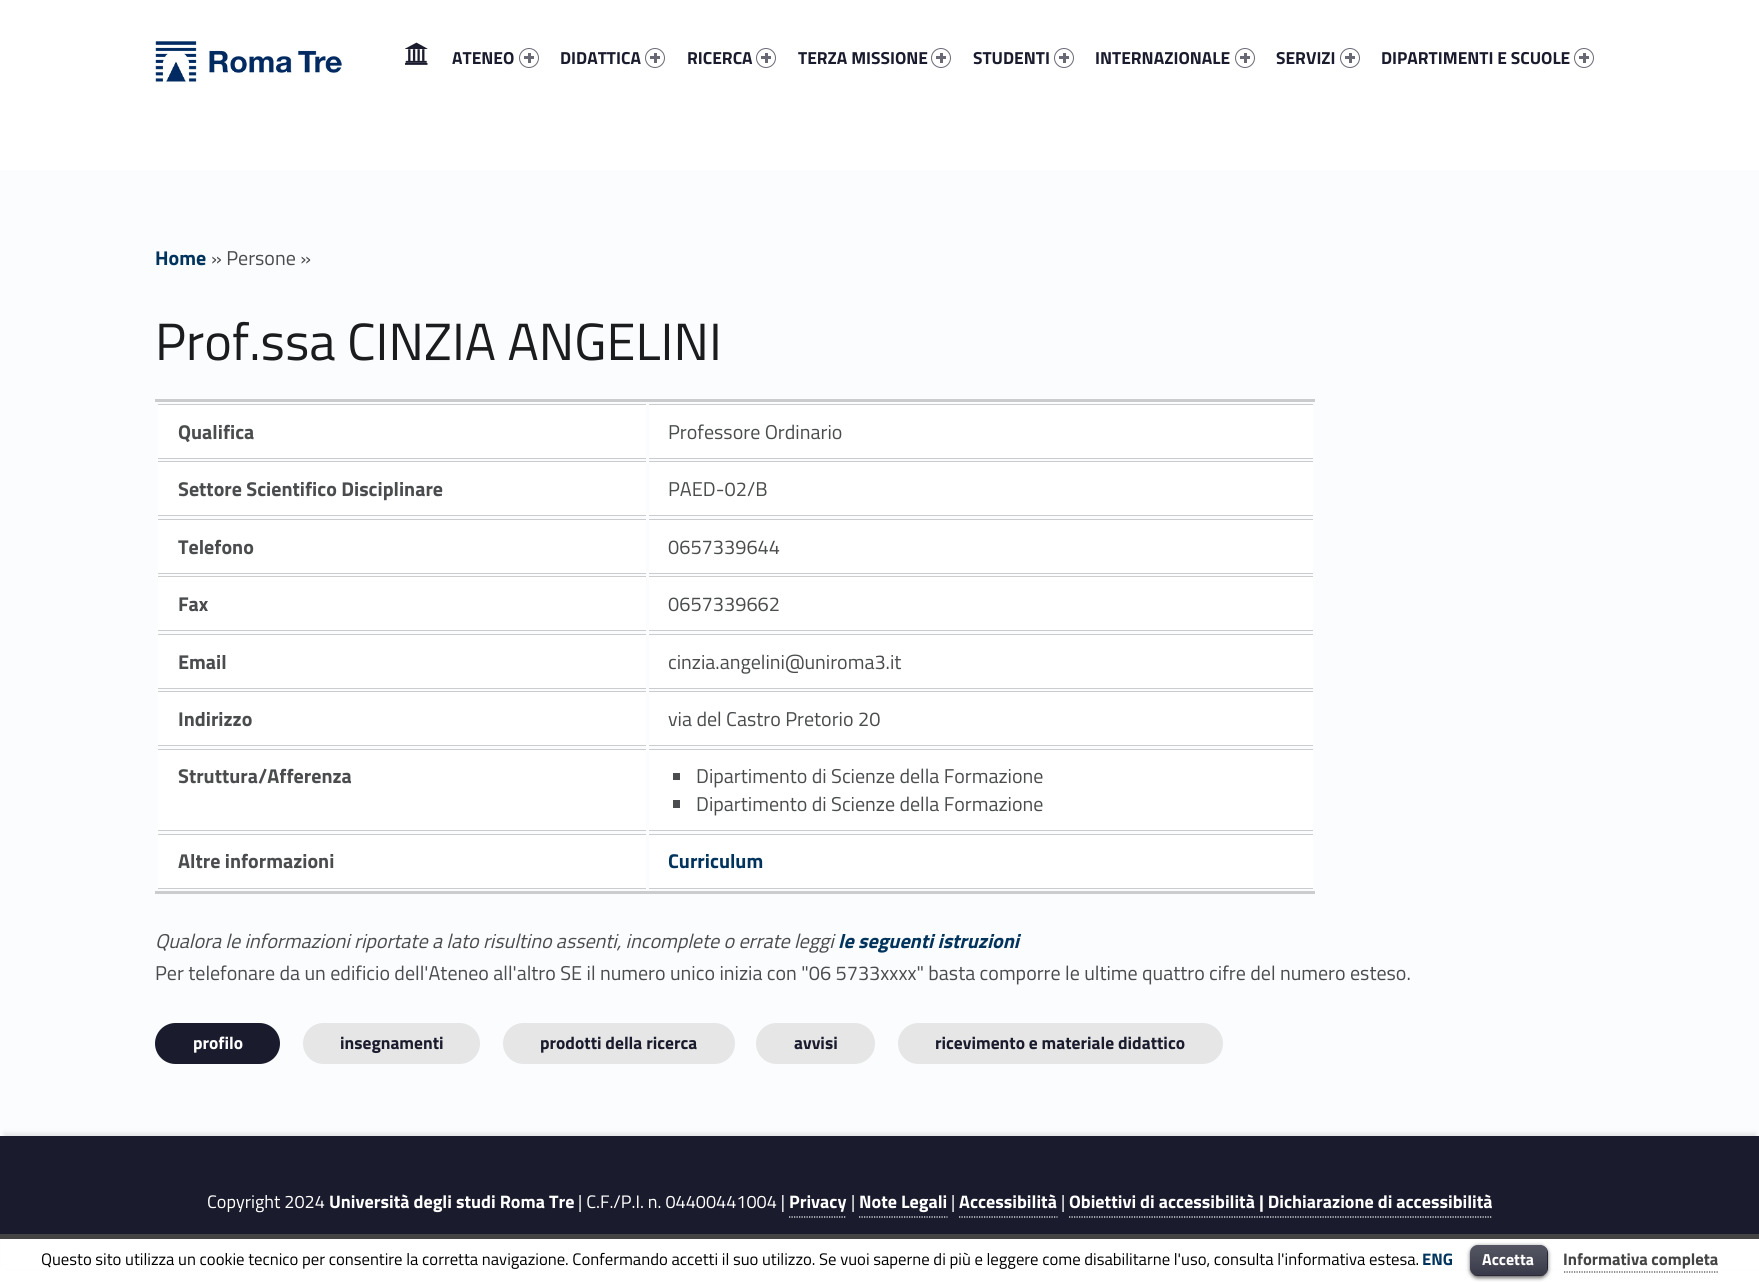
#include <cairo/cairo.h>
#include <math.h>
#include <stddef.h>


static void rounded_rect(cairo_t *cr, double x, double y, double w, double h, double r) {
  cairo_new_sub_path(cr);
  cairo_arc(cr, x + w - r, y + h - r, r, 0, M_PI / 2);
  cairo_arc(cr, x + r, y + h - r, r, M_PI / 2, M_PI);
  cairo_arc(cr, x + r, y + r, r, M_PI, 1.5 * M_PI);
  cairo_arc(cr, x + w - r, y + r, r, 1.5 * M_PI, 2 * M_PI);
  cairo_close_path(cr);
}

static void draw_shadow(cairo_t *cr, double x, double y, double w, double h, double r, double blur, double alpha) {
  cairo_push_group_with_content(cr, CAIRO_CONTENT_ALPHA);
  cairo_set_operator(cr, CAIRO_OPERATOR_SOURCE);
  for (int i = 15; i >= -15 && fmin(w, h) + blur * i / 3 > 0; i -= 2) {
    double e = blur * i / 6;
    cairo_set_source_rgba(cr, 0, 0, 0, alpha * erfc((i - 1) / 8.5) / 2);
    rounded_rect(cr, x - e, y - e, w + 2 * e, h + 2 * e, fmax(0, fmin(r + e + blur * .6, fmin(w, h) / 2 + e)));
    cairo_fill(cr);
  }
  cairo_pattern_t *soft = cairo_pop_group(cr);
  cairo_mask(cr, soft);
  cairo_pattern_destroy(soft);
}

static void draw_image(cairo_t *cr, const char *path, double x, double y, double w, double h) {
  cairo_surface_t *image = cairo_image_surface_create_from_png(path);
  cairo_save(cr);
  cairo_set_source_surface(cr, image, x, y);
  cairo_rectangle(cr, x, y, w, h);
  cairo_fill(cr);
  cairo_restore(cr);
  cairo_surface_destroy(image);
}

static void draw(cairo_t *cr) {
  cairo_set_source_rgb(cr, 1, 1, 1);
  cairo_paint(cr);
  draw_image(cr, "images/1.png", 155, 41, 187, 41);
  draw_image(cr, "images/2.png", 405, 42, 23, 23);
  cairo_arc(cr, 529, 58, 9.5, 0, 2 * M_PI);
  cairo_set_source_rgb(cr, 104 / 255.0, 105 / 255.0, 117 / 255.0);
  cairo_set_line_width(cr, 1);
  cairo_stroke(cr);
  cairo_rectangle(cr, 524, 56, 10, 3);
  cairo_fill(cr);
  cairo_rectangle(cr, 528, 53, 3, 10);
  cairo_fill(cr);
  cairo_arc(cr, 655, 58, 9.5, 0, 2 * M_PI);
  cairo_stroke(cr);
  cairo_rectangle(cr, 650, 56, 10, 3);
  cairo_fill(cr);
  cairo_rectangle(cr, 654, 53, 3, 10);
  cairo_fill(cr);
  cairo_arc(cr, 766, 58, 9.5, 0, 2 * M_PI);
  cairo_stroke(cr);
  cairo_rectangle(cr, 761, 56, 10, 3);
  cairo_fill(cr);
  cairo_rectangle(cr, 765, 53, 3, 10);
  cairo_fill(cr);
  cairo_arc(cr, 941, 58, 9.5, 0, 2 * M_PI);
  cairo_stroke(cr);
  cairo_rectangle(cr, 936, 56, 10, 3);
  cairo_fill(cr);
  cairo_rectangle(cr, 940, 53, 3, 10);
  cairo_fill(cr);
  cairo_arc(cr, 1064, 58, 9.5, 0, 2 * M_PI);
  cairo_stroke(cr);
  cairo_rectangle(cr, 1059, 56, 10, 3);
  cairo_fill(cr);
  cairo_rectangle(cr, 1063, 53, 3, 10);
  cairo_fill(cr);
  cairo_arc(cr, 1245, 58, 9.5, 0, 2 * M_PI);
  cairo_stroke(cr);
  cairo_rectangle(cr, 1240, 56, 10, 3);
  cairo_fill(cr);
  cairo_rectangle(cr, 1244, 53, 3, 10);
  cairo_fill(cr);
  cairo_arc(cr, 1350, 58, 9.5, 0, 2 * M_PI);
  cairo_stroke(cr);
  cairo_rectangle(cr, 1345, 56, 10, 3);
  cairo_fill(cr);
  cairo_rectangle(cr, 1349, 53, 3, 10);
  cairo_fill(cr);
  cairo_arc(cr, 1584, 58, 9.5, 0, 2 * M_PI);
  cairo_stroke(cr);
  cairo_rectangle(cr, 1579, 56, 10, 3);
  cairo_fill(cr);
  cairo_rectangle(cr, 1583, 53, 3, 10);
  cairo_fill(cr);
  cairo_set_source_rgb(cr, 250 / 255.0, 252 / 255.0, 254 / 255.0);
  cairo_rectangle(cr, 0, 170, 1759, 966);
  cairo_fill(cr);
  cairo_set_source_rgb(cr, 202 / 255.0, 204 / 255.0, 206 / 255.0);
  cairo_rectangle(cr, 155, 399, 1160, 3);
  cairo_fill(cr);
  cairo_rectangle(cr, 155, 891, 1160, 3);
  cairo_fill(cr);
  cairo_set_source_rgb(cr, 1, 1, 1);
  cairo_rectangle(cr, 158, 405, 488, 53);
  cairo_fill(cr);
  cairo_set_source_rgb(cr, 202 / 255.0, 204 / 255.0, 206 / 255.0);
  cairo_rectangle(cr, 158, 404, 488, 1);
  cairo_fill(cr);
  cairo_rectangle(cr, 158, 458, 488, 1);
  cairo_fill(cr);
  cairo_set_source_rgb(cr, 1, 1, 1);
  cairo_rectangle(cr, 649, 405, 664, 53);
  cairo_fill(cr);
  cairo_set_source_rgb(cr, 202 / 255.0, 204 / 255.0, 206 / 255.0);
  cairo_rectangle(cr, 649, 404, 664, 1);
  cairo_fill(cr);
  cairo_rectangle(cr, 649, 458, 664, 1);
  cairo_fill(cr);
  cairo_set_source_rgb(cr, 1, 1, 1);
  cairo_rectangle(cr, 158, 462, 488, 53);
  cairo_fill(cr);
  cairo_set_source_rgb(cr, 202 / 255.0, 204 / 255.0, 206 / 255.0);
  cairo_rectangle(cr, 158, 461, 488, 1);
  cairo_fill(cr);
  cairo_rectangle(cr, 158, 515, 488, 1);
  cairo_fill(cr);
  cairo_set_source_rgb(cr, 1, 1, 1);
  cairo_rectangle(cr, 649, 462, 664, 53);
  cairo_fill(cr);
  cairo_set_source_rgb(cr, 202 / 255.0, 204 / 255.0, 206 / 255.0);
  cairo_rectangle(cr, 649, 461, 664, 1);
  cairo_fill(cr);
  cairo_rectangle(cr, 649, 515, 664, 1);
  cairo_fill(cr);
  cairo_set_source_rgb(cr, 1, 1, 1);
  cairo_rectangle(cr, 158, 520, 488, 53);
  cairo_fill(cr);
  cairo_set_source_rgb(cr, 202 / 255.0, 204 / 255.0, 206 / 255.0);
  cairo_rectangle(cr, 158, 519, 488, 1);
  cairo_fill(cr);
  cairo_rectangle(cr, 158, 573, 488, 1);
  cairo_fill(cr);
  cairo_set_source_rgb(cr, 1, 1, 1);
  cairo_rectangle(cr, 649, 520, 664, 53);
  cairo_fill(cr);
  cairo_set_source_rgb(cr, 202 / 255.0, 204 / 255.0, 206 / 255.0);
  cairo_rectangle(cr, 649, 519, 664, 1);
  cairo_fill(cr);
  cairo_rectangle(cr, 649, 573, 664, 1);
  cairo_fill(cr);
  cairo_set_source_rgb(cr, 1, 1, 1);
  cairo_rectangle(cr, 158, 577, 488, 53);
  cairo_fill(cr);
  cairo_set_source_rgb(cr, 202 / 255.0, 204 / 255.0, 206 / 255.0);
  cairo_rectangle(cr, 158, 576, 488, 1);
  cairo_fill(cr);
  cairo_rectangle(cr, 158, 630, 488, 1);
  cairo_fill(cr);
  cairo_set_source_rgb(cr, 1, 1, 1);
  cairo_rectangle(cr, 649, 577, 664, 53);
  cairo_fill(cr);
  cairo_set_source_rgb(cr, 202 / 255.0, 204 / 255.0, 206 / 255.0);
  cairo_rectangle(cr, 649, 576, 664, 1);
  cairo_fill(cr);
  cairo_rectangle(cr, 649, 630, 664, 1);
  cairo_fill(cr);
  cairo_set_source_rgb(cr, 1, 1, 1);
  cairo_rectangle(cr, 158, 635, 488, 53);
  cairo_fill(cr);
  cairo_set_source_rgb(cr, 202 / 255.0, 204 / 255.0, 206 / 255.0);
  cairo_rectangle(cr, 158, 634, 488, 1);
  cairo_fill(cr);
  cairo_rectangle(cr, 158, 688, 488, 1);
  cairo_fill(cr);
  cairo_set_source_rgb(cr, 1, 1, 1);
  cairo_rectangle(cr, 649, 635, 664, 53);
  cairo_fill(cr);
  cairo_set_source_rgb(cr, 202 / 255.0, 204 / 255.0, 206 / 255.0);
  cairo_rectangle(cr, 649, 634, 664, 1);
  cairo_fill(cr);
  cairo_rectangle(cr, 649, 688, 664, 1);
  cairo_fill(cr);
  cairo_set_source_rgb(cr, 1, 1, 1);
  cairo_rectangle(cr, 158, 692, 488, 53);
  cairo_fill(cr);
  cairo_set_source_rgb(cr, 202 / 255.0, 204 / 255.0, 206 / 255.0);
  cairo_rectangle(cr, 158, 691, 488, 1);
  cairo_fill(cr);
  cairo_rectangle(cr, 158, 745, 488, 1);
  cairo_fill(cr);
  cairo_set_source_rgb(cr, 1, 1, 1);
  cairo_rectangle(cr, 649, 692, 664, 53);
  cairo_fill(cr);
  cairo_set_source_rgb(cr, 202 / 255.0, 204 / 255.0, 206 / 255.0);
  cairo_rectangle(cr, 649, 691, 664, 1);
  cairo_fill(cr);
  cairo_rectangle(cr, 649, 745, 664, 1);
  cairo_fill(cr);
  cairo_set_source_rgb(cr, 1, 1, 1);
  cairo_rectangle(cr, 158, 750, 488, 80);
  cairo_fill(cr);
  cairo_set_source_rgb(cr, 202 / 255.0, 204 / 255.0, 206 / 255.0);
  cairo_rectangle(cr, 158, 749, 488, 1);
  cairo_fill(cr);
  cairo_rectangle(cr, 158, 830, 488, 1);
  cairo_fill(cr);
  cairo_set_source_rgb(cr, 1, 1, 1);
  cairo_rectangle(cr, 649, 750, 664, 80);
  cairo_fill(cr);
  cairo_set_source_rgb(cr, 202 / 255.0, 204 / 255.0, 206 / 255.0);
  cairo_rectangle(cr, 649, 749, 664, 1);
  cairo_fill(cr);
  cairo_rectangle(cr, 649, 830, 664, 1);
  cairo_fill(cr);
  cairo_set_source_rgb(cr, 74 / 255.0, 76 / 255.0, 77 / 255.0);
  cairo_rectangle(cr, 673, 773, 7, 7);
  cairo_fill(cr);
  cairo_rectangle(cr, 673, 800, 7, 8);
  cairo_fill(cr);
  cairo_set_source_rgb(cr, 1, 1, 1);
  cairo_rectangle(cr, 158, 835, 488, 53);
  cairo_fill(cr);
  cairo_set_source_rgb(cr, 202 / 255.0, 204 / 255.0, 206 / 255.0);
  cairo_rectangle(cr, 158, 834, 488, 1);
  cairo_fill(cr);
  cairo_rectangle(cr, 158, 888, 488, 1);
  cairo_fill(cr);
  cairo_set_source_rgb(cr, 1, 1, 1);
  cairo_rectangle(cr, 649, 835, 664, 53);
  cairo_fill(cr);
  cairo_set_source_rgb(cr, 202 / 255.0, 204 / 255.0, 206 / 255.0);
  cairo_rectangle(cr, 649, 834, 664, 1);
  cairo_fill(cr);
  cairo_rectangle(cr, 649, 888, 664, 1);
  cairo_fill(cr);
  cairo_set_source_rgb(cr, 26 / 255.0, 28 / 255.0, 46 / 255.0);
  rounded_rect(cr, 155, 1023, 125, 41, 20.5);
  cairo_fill(cr);
  cairo_set_source_rgb(cr, 230 / 255.0, 230 / 255.0, 230 / 255.0);
  rounded_rect(cr, 303, 1023, 177, 41, 20.5);
  cairo_fill(cr);
  rounded_rect(cr, 503, 1023, 232, 41, 20.5);
  cairo_fill(cr);
  rounded_rect(cr, 756, 1023, 119, 41, 20.5);
  cairo_fill(cr);
  rounded_rect(cr, 898, 1023, 325, 41, 20.5);
  cairo_fill(cr);
  cairo_set_source_rgb(cr, 0, 0, 0);
  draw_shadow(cr, 4, 1133, 1752, 133, 0, 2.5, 0.1);
  cairo_set_source_rgb(cr, 26 / 255.0, 28 / 255.0, 46 / 255.0);
  cairo_rectangle(cr, 0, 1136, 1759, 98);
  cairo_fill(cr);
  cairo_new_path(cr);
  cairo_move_to(cr, 789, 1217);
  cairo_line_to(cr, 846, 1217);
  cairo_set_source_rgb(cr, 250 / 255.0, 252 / 255.0, 254 / 255.0);
  cairo_set_line_width(cr, 1.2);
  cairo_set_dash(cr, (double[]){1.25, 1.25}, 2, 0);
  cairo_stroke(cr);
  cairo_new_path(cr);
  cairo_move_to(cr, 859, 1217);
  cairo_line_to(cr, 947.5, 1217);
  cairo_stroke(cr);
  cairo_new_path(cr);
  cairo_move_to(cr, 959, 1217);
  cairo_line_to(cr, 1057.5, 1217);
  cairo_stroke(cr);
  cairo_new_path(cr);
  cairo_move_to(cr, 1069, 1217);
  cairo_line_to(cr, 1267.5, 1217);
  cairo_stroke(cr);
  cairo_new_path(cr);
  cairo_move_to(cr, 1267.5, 1217);
  cairo_line_to(cr, 1492.5, 1217);
  cairo_stroke(cr);
  cairo_set_source_rgb(cr, 1, 1, 1);
  cairo_rectangle(cr, 1, 1239, 1758, 30);
  cairo_fill(cr);
  cairo_set_source_rgb(cr, 68 / 255.0, 68 / 255.0, 68 / 255.0);
  cairo_rectangle(cr, 0, 1234, 1759, 5);
  cairo_fill(cr);
  cairo_set_source_rgb(cr, 0, 0, 0);
  draw_shadow(cr, 1470, 1246, 78, 32, 8, 2, 0.6);
  cairo_set_source_rgb(cr, 26 / 255.0, 27 / 255.0, 45 / 255.0);
  rounded_rect(cr, 1470, 1245, 78, 31, 8);
  cairo_fill(cr);
  draw_image(cr, "images/3.png", 1470, 1245, 78, 31);
  cairo_set_source_rgba(cr, 0, 0, 0, 0.25);
  cairo_rectangle(cr, 1474, 1275, 70, 1);
  cairo_fill(cr);
  cairo_new_path(cr);
  cairo_move_to(cr, 1564, 1272);
  cairo_line_to(cr, 1719, 1272);
  cairo_set_source_rgb(cr, 68 / 255.0, 68 / 255.0, 68 / 255.0);
  cairo_stroke(cr);
  cairo_select_font_face(cr, "Titillium Web", CAIRO_FONT_SLANT_NORMAL, CAIRO_FONT_WEIGHT_BOLD);
  cairo_set_font_size(cr, 17.4);
  cairo_set_source_rgb(cr, 26 / 255.0, 28 / 255.0, 46 / 255.0);
  cairo_move_to(cr, 452, 64);
  cairo_show_text(cr, "ATENEO");
  cairo_move_to(cr, 560, 64);
  cairo_show_text(cr, "DIDATTICA");
  cairo_move_to(cr, 687, 64);
  cairo_show_text(cr, "RICERCA");
  cairo_move_to(cr, 798, 64);
  cairo_show_text(cr, "TERZA MISSIONE");
  cairo_move_to(cr, 973, 64);
  cairo_show_text(cr, "STUDENTI");
  cairo_move_to(cr, 1095, 64);
  cairo_show_text(cr, "INTERNAZIONALE");
  cairo_move_to(cr, 1276, 64);
  cairo_show_text(cr, "SERVIZI");
  cairo_move_to(cr, 1381, 64);
  cairo_show_text(cr, "DIPARTIMENTI E SCUOLE");
  cairo_set_font_size(cr, 20);
  cairo_set_source_rgb(cr, 1 / 255.0, 52 / 255.0, 93 / 255.0);
  cairo_move_to(cr, 155, 265);
  cairo_show_text(cr, "Home");
  cairo_select_font_face(cr, "Titillium Web", CAIRO_FONT_SLANT_NORMAL, CAIRO_FONT_WEIGHT_NORMAL);
  cairo_set_source_rgb(cr, 74 / 255.0, 76 / 255.0, 77 / 255.0);
  cairo_move_to(cr, 211, 265);
  cairo_show_text(cr, "» Persone »");
  cairo_set_font_size(cr, 52.4);
  cairo_set_source_rgb(cr, 26 / 255.0, 28 / 255.0, 30 / 255.0);
  cairo_move_to(cr, 155, 360);
  cairo_show_text(cr, "Prof.ssa CINZIA ANGELINI");
  cairo_select_font_face(cr, "Titillium Web", CAIRO_FONT_SLANT_NORMAL, CAIRO_FONT_WEIGHT_BOLD);
  cairo_set_font_size(cr, 20);
  cairo_set_source_rgb(cr, 74 / 255.0, 76 / 255.0, 77 / 255.0);
  cairo_move_to(cr, 178, 439);
  cairo_show_text(cr, "Qualifica");
  cairo_select_font_face(cr, "Titillium Web", CAIRO_FONT_SLANT_NORMAL, CAIRO_FONT_WEIGHT_NORMAL);
  cairo_move_to(cr, 668, 439);
  cairo_show_text(cr, "Professore Ordinario");
  cairo_select_font_face(cr, "Titillium Web", CAIRO_FONT_SLANT_NORMAL, CAIRO_FONT_WEIGHT_BOLD);
  cairo_move_to(cr, 178, 496);
  cairo_show_text(cr, "Settore Scientifico Disciplinare");
  cairo_select_font_face(cr, "Titillium Web", CAIRO_FONT_SLANT_NORMAL, CAIRO_FONT_WEIGHT_NORMAL);
  cairo_move_to(cr, 668, 496);
  cairo_show_text(cr, "PAED-02/B");
  cairo_select_font_face(cr, "Titillium Web", CAIRO_FONT_SLANT_NORMAL, CAIRO_FONT_WEIGHT_BOLD);
  cairo_move_to(cr, 178, 554);
  cairo_show_text(cr, "Telefono");
  cairo_select_font_face(cr, "Titillium Web", CAIRO_FONT_SLANT_NORMAL, CAIRO_FONT_WEIGHT_NORMAL);
  cairo_move_to(cr, 668, 554);
  cairo_show_text(cr, "0657339644");
  cairo_select_font_face(cr, "Titillium Web", CAIRO_FONT_SLANT_NORMAL, CAIRO_FONT_WEIGHT_BOLD);
  cairo_move_to(cr, 178, 611);
  cairo_show_text(cr, "Fax");
  cairo_select_font_face(cr, "Titillium Web", CAIRO_FONT_SLANT_NORMAL, CAIRO_FONT_WEIGHT_NORMAL);
  cairo_move_to(cr, 668, 611);
  cairo_show_text(cr, "0657339662");
  cairo_select_font_face(cr, "Titillium Web", CAIRO_FONT_SLANT_NORMAL, CAIRO_FONT_WEIGHT_BOLD);
  cairo_move_to(cr, 178, 669);
  cairo_show_text(cr, "Email");
  cairo_select_font_face(cr, "Titillium Web", CAIRO_FONT_SLANT_NORMAL, CAIRO_FONT_WEIGHT_NORMAL);
  cairo_move_to(cr, 668, 669);
  cairo_show_text(cr, "cinzia.angelini@uniroma3.it");
  cairo_select_font_face(cr, "Titillium Web", CAIRO_FONT_SLANT_NORMAL, CAIRO_FONT_WEIGHT_BOLD);
  cairo_move_to(cr, 178, 726);
  cairo_show_text(cr, "Indirizzo");
  cairo_select_font_face(cr, "Titillium Web", CAIRO_FONT_SLANT_NORMAL, CAIRO_FONT_WEIGHT_NORMAL);
  cairo_move_to(cr, 668, 726);
  cairo_show_text(cr, "via del Castro Pretorio 20");
  cairo_select_font_face(cr, "Titillium Web", CAIRO_FONT_SLANT_NORMAL, CAIRO_FONT_WEIGHT_BOLD);
  cairo_move_to(cr, 178, 783);
  cairo_show_text(cr, "Struttura/Afferenza");
  cairo_select_font_face(cr, "Titillium Web", CAIRO_FONT_SLANT_NORMAL, CAIRO_FONT_WEIGHT_NORMAL);
  cairo_move_to(cr, 696, 783);
  cairo_show_text(cr, "Dipartimento di Scienze della Formazione");
  cairo_move_to(cr, 696, 811);
  cairo_show_text(cr, "Dipartimento di Scienze della Formazione");
  cairo_select_font_face(cr, "Titillium Web", CAIRO_FONT_SLANT_NORMAL, CAIRO_FONT_WEIGHT_BOLD);
  cairo_move_to(cr, 178, 868);
  cairo_show_text(cr, "Altre informazioni");
  cairo_set_source_rgb(cr, 1 / 255.0, 52 / 255.0, 93 / 255.0);
  cairo_move_to(cr, 668, 868);
  cairo_show_text(cr, "Curriculum");
  cairo_select_font_face(cr, "Titillium Web", CAIRO_FONT_SLANT_ITALIC, CAIRO_FONT_WEIGHT_NORMAL);
  cairo_set_source_rgb(cr, 74 / 255.0, 76 / 255.0, 77 / 255.0);
  cairo_move_to(cr, 155, 948);
  cairo_show_text(cr, "Qualora le informazioni riportate a lato risultino assenti, incomplete o errate leggi");
  cairo_select_font_face(cr, "Titillium Web", CAIRO_FONT_SLANT_ITALIC, CAIRO_FONT_WEIGHT_BOLD);
  cairo_set_source_rgb(cr, 1 / 255.0, 52 / 255.0, 93 / 255.0);
  cairo_move_to(cr, 838, 948);
  cairo_show_text(cr, "le seguenti istruzioni");
  cairo_select_font_face(cr, "Titillium Web", CAIRO_FONT_SLANT_NORMAL, CAIRO_FONT_WEIGHT_NORMAL);
  cairo_set_source_rgb(cr, 74 / 255.0, 76 / 255.0, 77 / 255.0);
  cairo_move_to(cr, 155, 980);
  cairo_show_text(cr, "Per telefonare da un edificio dell'Ateneo all'altro SE il numero unico inizia con \"06 5733xxxx\" basta comporre le ultime quattro cifre del numero esteso.");
  cairo_select_font_face(cr, "Titillium Web", CAIRO_FONT_SLANT_NORMAL, CAIRO_FONT_WEIGHT_BOLD);
  cairo_set_font_size(cr, 17.5);
  cairo_set_source_rgb(cr, 1, 1, 1);
  cairo_move_to(cr, 193, 1049);
  cairo_show_text(cr, "profilo");
  cairo_set_source_rgb(cr, 26 / 255.0, 28 / 255.0, 46 / 255.0);
  cairo_move_to(cr, 340, 1049);
  cairo_show_text(cr, "insegnamenti");
  cairo_move_to(cr, 540, 1049);
  cairo_show_text(cr, "prodotti della ricerca");
  cairo_move_to(cr, 794, 1049);
  cairo_show_text(cr, "avvisi");
  cairo_move_to(cr, 935, 1049);
  cairo_show_text(cr, "ricevimento e materiale didattico");
  cairo_select_font_face(cr, "Titillium Web", CAIRO_FONT_SLANT_NORMAL, CAIRO_FONT_WEIGHT_NORMAL);
  cairo_set_font_size(cr, 18.1);
  cairo_set_source_rgb(cr, 1, 1, 1);
  cairo_move_to(cr, 207, 1208);
  cairo_show_text(cr, "Copyright 2024");
  cairo_select_font_face(cr, "Titillium Web", CAIRO_FONT_SLANT_NORMAL, CAIRO_FONT_WEIGHT_BOLD);
  cairo_move_to(cr, 329, 1208);
  cairo_show_text(cr, "Università degli studi Roma Tre");
  cairo_select_font_face(cr, "Titillium Web", CAIRO_FONT_SLANT_NORMAL, CAIRO_FONT_WEIGHT_NORMAL);
  cairo_move_to(cr, 578, 1208);
  cairo_show_text(cr, "| C.F./P.I. n. 04400441004 |");
  cairo_select_font_face(cr, "Titillium Web", CAIRO_FONT_SLANT_NORMAL, CAIRO_FONT_WEIGHT_BOLD);
  cairo_move_to(cr, 789, 1208);
  cairo_show_text(cr, "Privacy");
  cairo_select_font_face(cr, "Titillium Web", CAIRO_FONT_SLANT_NORMAL, CAIRO_FONT_WEIGHT_NORMAL);
  cairo_move_to(cr, 851, 1208);
  cairo_show_text(cr, "|");
  cairo_select_font_face(cr, "Titillium Web", CAIRO_FONT_SLANT_NORMAL, CAIRO_FONT_WEIGHT_BOLD);
  cairo_move_to(cr, 859, 1208);
  cairo_show_text(cr, "Note Legali");
  cairo_select_font_face(cr, "Titillium Web", CAIRO_FONT_SLANT_NORMAL, CAIRO_FONT_WEIGHT_NORMAL);
  cairo_move_to(cr, 951, 1208);
  cairo_show_text(cr, "|");
  cairo_select_font_face(cr, "Titillium Web", CAIRO_FONT_SLANT_NORMAL, CAIRO_FONT_WEIGHT_BOLD);
  cairo_move_to(cr, 959, 1208);
  cairo_show_text(cr, "Accessibilità");
  cairo_select_font_face(cr, "Titillium Web", CAIRO_FONT_SLANT_NORMAL, CAIRO_FONT_WEIGHT_NORMAL);
  cairo_move_to(cr, 1061, 1208);
  cairo_show_text(cr, "|");
  cairo_select_font_face(cr, "Titillium Web", CAIRO_FONT_SLANT_NORMAL, CAIRO_FONT_WEIGHT_BOLD);
  cairo_move_to(cr, 1069, 1208);
  cairo_show_text(cr, "Obiettivi di accessibilità | Dichiarazione di accessibilità");
  cairo_select_font_face(cr, "Titillium Web", CAIRO_FONT_SLANT_NORMAL, CAIRO_FONT_WEIGHT_NORMAL);
  cairo_set_font_size(cr, 16.67);
  cairo_set_source_rgb(cr, 0, 0, 0);
  cairo_move_to(cr, 41, 1265);
  cairo_show_text(cr, "Questo sito utilizza un cookie tecnico per consentire la corretta navigazione. Confermando accetti il suo utilizzo. Se vuoi saperne di più e leggere come disabilitarne l'uso, consulta l'informativa estesa.");
  cairo_select_font_face(cr, "Titillium Web", CAIRO_FONT_SLANT_NORMAL, CAIRO_FONT_WEIGHT_BOLD);
  cairo_set_source_rgb(cr, 1 / 255.0, 52 / 255.0, 93 / 255.0);
  cairo_move_to(cr, 1422, 1265);
  cairo_show_text(cr, "ENG");
  cairo_set_font_size(cr, 16);
  cairo_set_source_rgb(cr, 1, 1, 1);
  cairo_move_to(cr, 1482, 1265);
  cairo_show_text(cr, "Accetta");
  cairo_set_font_size(cr, 16.67);
  cairo_set_source_rgb(cr, 68 / 255.0, 68 / 255.0, 68 / 255.0);
  cairo_move_to(cr, 1563, 1265);
  cairo_show_text(cr, "Informativa completa");
}

int main(void) {
  cairo_surface_t *surface = cairo_image_surface_create(CAIRO_FORMAT_RGB24, 1759, 1282);
  cairo_t *cr = cairo_create(surface);
  cairo_font_options_t *options = cairo_font_options_create();
  cairo_font_options_set_hint_metrics(options, CAIRO_HINT_METRICS_OFF);
  cairo_font_options_set_hint_style(options, CAIRO_HINT_STYLE_NONE);
  cairo_set_font_options(cr, options);
  cairo_set_miter_limit(cr, 4);
  draw(cr);
  cairo_surface_write_to_png(surface, "out.png");
  cairo_font_options_destroy(options);
  cairo_destroy(cr);
  cairo_surface_destroy(surface);
  return 0;
}
